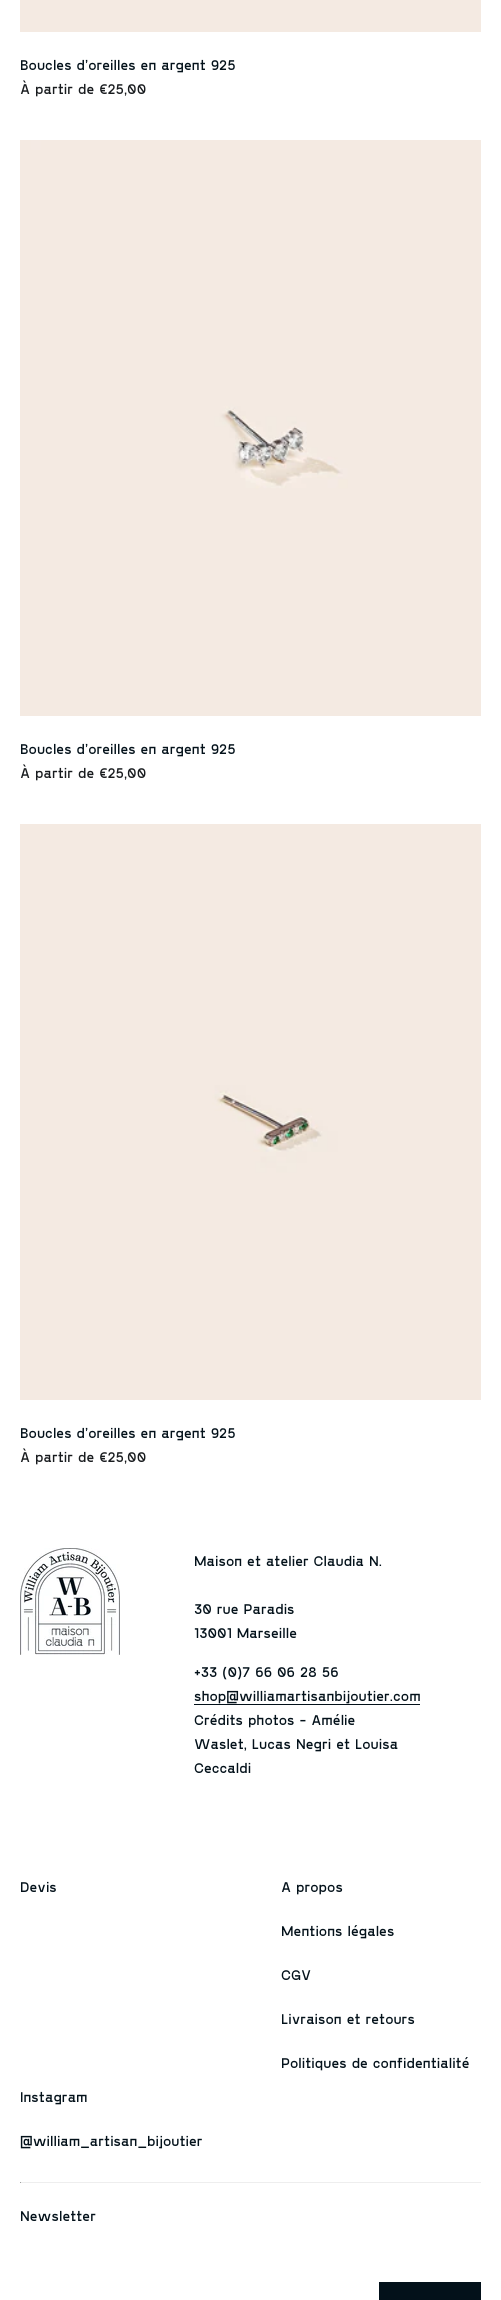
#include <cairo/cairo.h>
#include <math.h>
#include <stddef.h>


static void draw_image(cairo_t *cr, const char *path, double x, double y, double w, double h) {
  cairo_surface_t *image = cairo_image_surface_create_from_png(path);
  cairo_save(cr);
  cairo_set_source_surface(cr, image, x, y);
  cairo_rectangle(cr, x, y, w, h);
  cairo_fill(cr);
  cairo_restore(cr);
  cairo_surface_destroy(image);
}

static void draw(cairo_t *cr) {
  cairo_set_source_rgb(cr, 1, 1, 1);
  cairo_paint(cr);
  cairo_set_source_rgb(cr, 244 / 255.0, 234 / 255.0, 226 / 255.0);
  cairo_rectangle(cr, 20, 0, 461, 32);
  cairo_fill(cr);
  draw_image(cr, "images/1.png", 20, 140, 461, 576);
  draw_image(cr, "images/2.png", 20, 824, 461, 576);
  draw_image(cr, "images/3.png", 20, 1548, 100, 107);
  cairo_set_source_rgb(cr, 3 / 255.0, 17 / 255.0, 26 / 255.0);
  cairo_rectangle(cr, 194, 1704, 226, 1);
  cairo_fill(cr);
  cairo_set_source_rgb(cr, 238 / 255.0, 238 / 255.0, 238 / 255.0);
  cairo_rectangle(cr, 20, 2182, 461, 1);
  cairo_fill(cr);
  cairo_set_source_rgb(cr, 159 / 255.0, 159 / 255.0, 159 / 255.0);
  cairo_rectangle(cr, 20, 2182, 1, 1);
  cairo_fill(cr);
  cairo_set_source_rgb(cr, 3 / 255.0, 17 / 255.0, 26 / 255.0);
  cairo_rectangle(cr, 379, 2282, 102, 18);
  cairo_fill(cr);
  cairo_select_font_face(cr, "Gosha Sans", CAIRO_FONT_SLANT_NORMAL, CAIRO_FONT_WEIGHT_NORMAL);
  cairo_set_font_size(cr, 14.4);
  cairo_move_to(cr, 20, 70);
  cairo_show_text(cr, "Boucles d’oreilles en argent 925");
  cairo_set_source_rgb(cr, 24 / 255.0, 27 / 255.0, 30 / 255.0);
  cairo_move_to(cr, 20, 94);
  cairo_show_text(cr, "À partir de €25,00");
  cairo_set_source_rgb(cr, 3 / 255.0, 17 / 255.0, 26 / 255.0);
  cairo_move_to(cr, 20, 754);
  cairo_show_text(cr, "Boucles d’oreilles en argent 925");
  cairo_set_source_rgb(cr, 24 / 255.0, 27 / 255.0, 30 / 255.0);
  cairo_move_to(cr, 20, 778);
  cairo_show_text(cr, "À partir de €25,00");
  cairo_set_source_rgb(cr, 3 / 255.0, 17 / 255.0, 26 / 255.0);
  cairo_move_to(cr, 20, 1438);
  cairo_show_text(cr, "Boucles d’oreilles en argent 925");
  cairo_set_source_rgb(cr, 24 / 255.0, 27 / 255.0, 30 / 255.0);
  cairo_move_to(cr, 20, 1462);
  cairo_show_text(cr, "À partir de €25,00");
  cairo_set_source_rgb(cr, 3 / 255.0, 17 / 255.0, 26 / 255.0);
  cairo_move_to(cr, 194, 1566);
  cairo_show_text(cr, "Maison et atelier Claudia N.");
  cairo_move_to(cr, 194, 1614);
  cairo_show_text(cr, "30 rue Paradis");
  cairo_move_to(cr, 194, 1638);
  cairo_show_text(cr, "13001 Marseille");
  cairo_move_to(cr, 194, 1677);
  cairo_show_text(cr, "+33 (0)7 66 06 28 56");
  cairo_move_to(cr, 194, 1701);
  cairo_show_text(cr, "shop@williamartisanbijoutier.com");
  cairo_move_to(cr, 194, 1725);
  cairo_show_text(cr, "Crédits photos - Amélie");
  cairo_move_to(cr, 194, 1749);
  cairo_show_text(cr, "Waslet, Lucas Negri et Louisa");
  cairo_move_to(cr, 194, 1773);
  cairo_show_text(cr, "Ceccaldi");
  cairo_move_to(cr, 20, 1892);
  cairo_show_text(cr, "Devis");
  cairo_move_to(cr, 281, 1892);
  cairo_show_text(cr, "A propos");
  cairo_move_to(cr, 281, 1936);
  cairo_show_text(cr, "Mentions légales");
  cairo_move_to(cr, 281, 1980);
  cairo_show_text(cr, "CGV");
  cairo_move_to(cr, 281, 2024);
  cairo_show_text(cr, "Livraison et retours");
  cairo_move_to(cr, 281, 2068);
  cairo_show_text(cr, "Politiques de confidentialité");
  cairo_move_to(cr, 20, 2102);
  cairo_show_text(cr, "Instagram");
  cairo_move_to(cr, 20, 2146);
  cairo_show_text(cr, "@william_artisan_bijoutier");
  cairo_move_to(cr, 20, 2221);
  cairo_show_text(cr, "Newsletter");
}

int main(void) {
  cairo_surface_t *surface = cairo_image_surface_create(CAIRO_FORMAT_RGB24, 501, 2300);
  cairo_t *cr = cairo_create(surface);
  cairo_font_options_t *options = cairo_font_options_create();
  cairo_font_options_set_hint_metrics(options, CAIRO_HINT_METRICS_OFF);
  cairo_font_options_set_hint_style(options, CAIRO_HINT_STYLE_NONE);
  cairo_set_font_options(cr, options);
  cairo_set_miter_limit(cr, 4);
  draw(cr);
  cairo_surface_write_to_png(surface, "out.png");
  cairo_font_options_destroy(options);
  cairo_destroy(cr);
  cairo_surface_destroy(surface);
  return 0;
}
